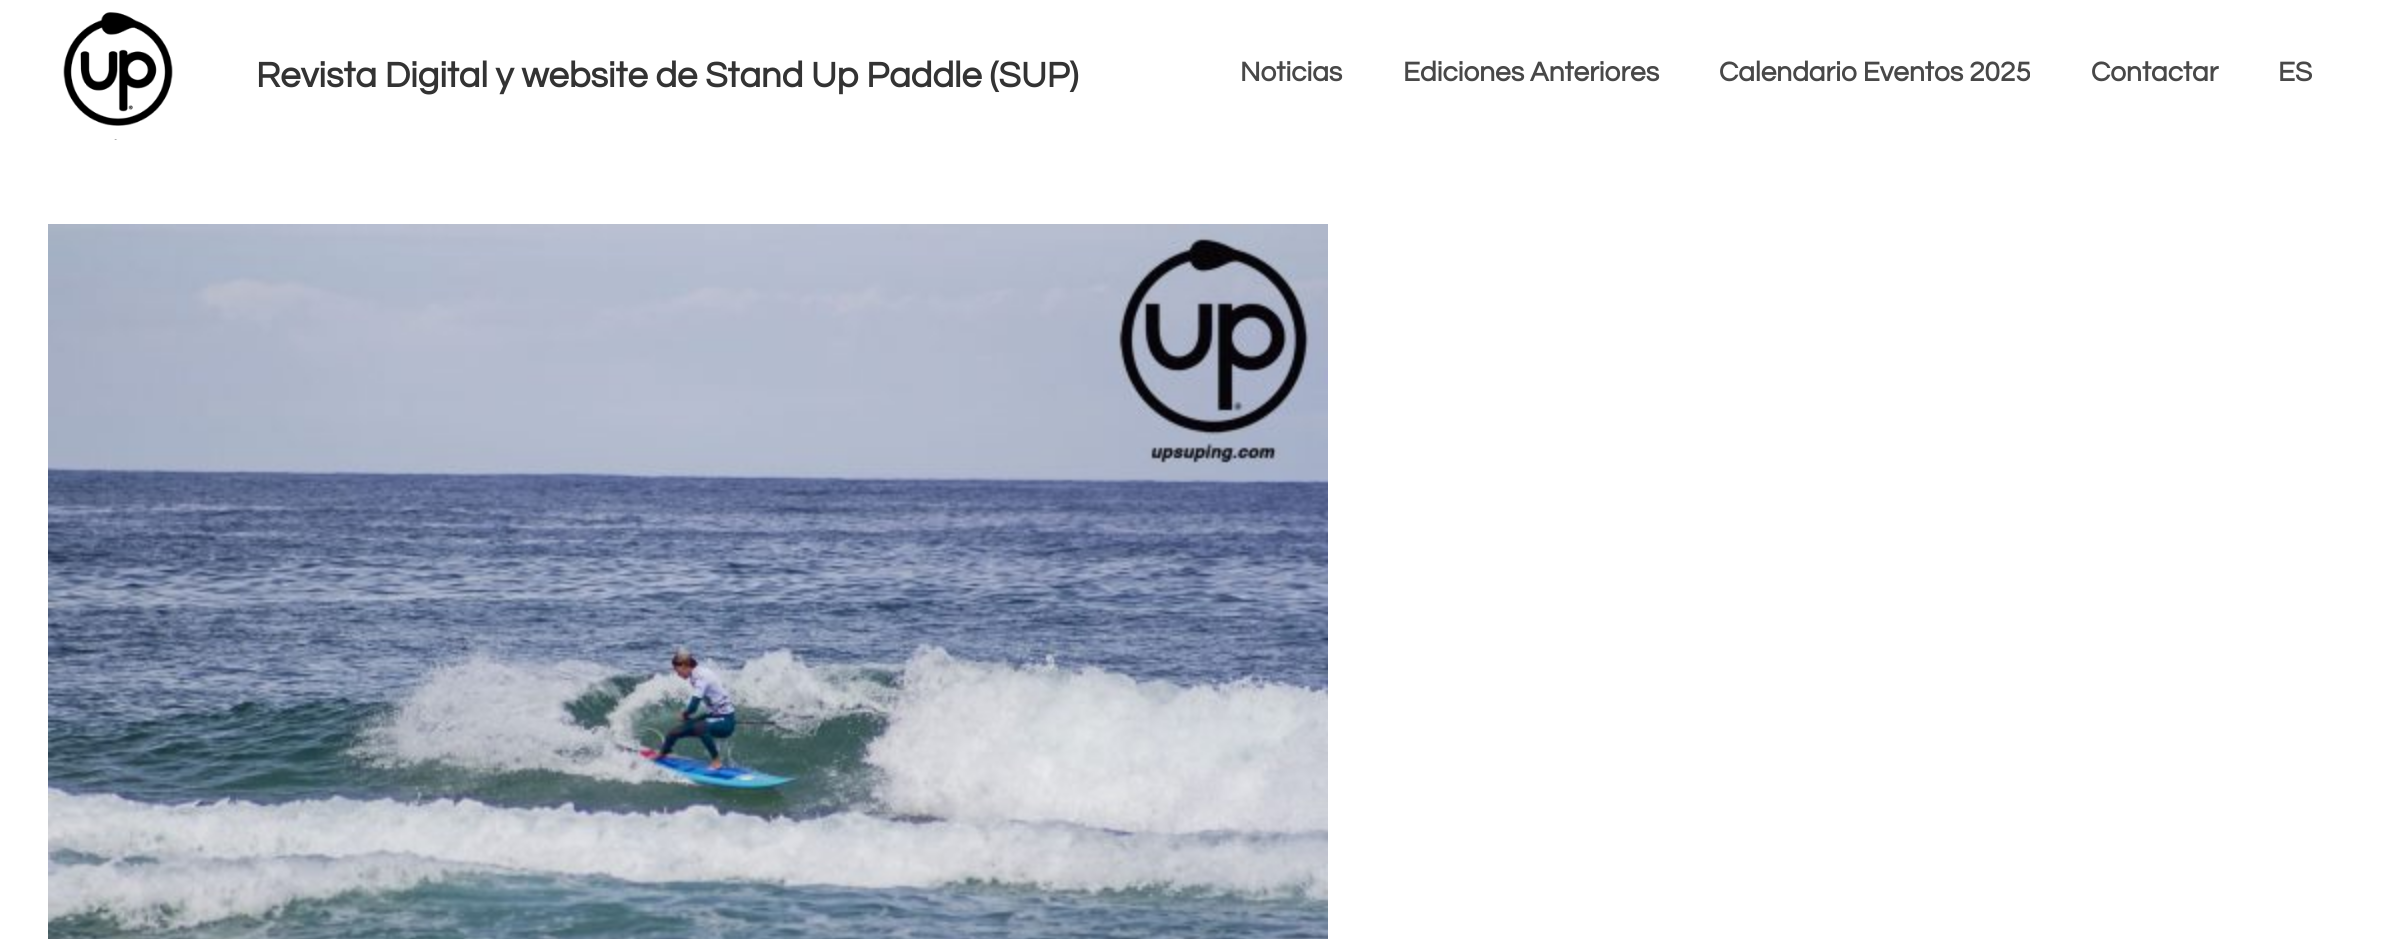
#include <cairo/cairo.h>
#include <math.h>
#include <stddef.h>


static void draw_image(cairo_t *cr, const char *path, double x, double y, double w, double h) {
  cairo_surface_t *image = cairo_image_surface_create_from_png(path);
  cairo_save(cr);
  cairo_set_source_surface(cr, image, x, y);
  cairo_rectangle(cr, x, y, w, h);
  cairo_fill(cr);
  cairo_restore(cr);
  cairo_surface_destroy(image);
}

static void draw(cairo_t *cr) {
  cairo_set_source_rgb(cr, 1, 1, 1);
  cairo_paint(cr);
  draw_image(cr, "images/1.png", 63, 12, 110, 128);
  draw_image(cr, "images/2.png", 48, 224, 1280, 715);
  cairo_select_font_face(cr, "Questrial", CAIRO_FONT_SLANT_NORMAL, CAIRO_FONT_WEIGHT_BOLD);
  cairo_set_font_size(cr, 36.4);
  cairo_set_source_rgb(cr, 51 / 255.0, 51 / 255.0, 51 / 255.0);
  cairo_move_to(cr, 256, 87);
  cairo_show_text(cr, "Revista Digital y website de Stand Up Paddle (SUP)");
  cairo_set_font_size(cr, 28);
  cairo_set_source_rgb(cr, 72 / 255.0, 72 / 255.0, 72 / 255.0);
  cairo_move_to(cr, 1240, 81);
  cairo_show_text(cr, "Noticias");
  cairo_move_to(cr, 1403, 81);
  cairo_show_text(cr, "Ediciones Anteriores");
  cairo_move_to(cr, 1719, 81);
  cairo_show_text(cr, "Calendario Eventos 2025");
  cairo_move_to(cr, 2091, 81);
  cairo_show_text(cr, "Contactar");
  cairo_move_to(cr, 2278, 81);
  cairo_show_text(cr, "ES");
}

int main(void) {
  cairo_surface_t *surface = cairo_image_surface_create(CAIRO_FORMAT_RGB24, 2390, 939);
  cairo_t *cr = cairo_create(surface);
  cairo_font_options_t *options = cairo_font_options_create();
  cairo_font_options_set_hint_metrics(options, CAIRO_HINT_METRICS_OFF);
  cairo_font_options_set_hint_style(options, CAIRO_HINT_STYLE_NONE);
  cairo_set_font_options(cr, options);
  cairo_set_miter_limit(cr, 4);
  draw(cr);
  cairo_surface_write_to_png(surface, "out.png");
  cairo_font_options_destroy(options);
  cairo_destroy(cr);
  cairo_surface_destroy(surface);
  return 0;
}
